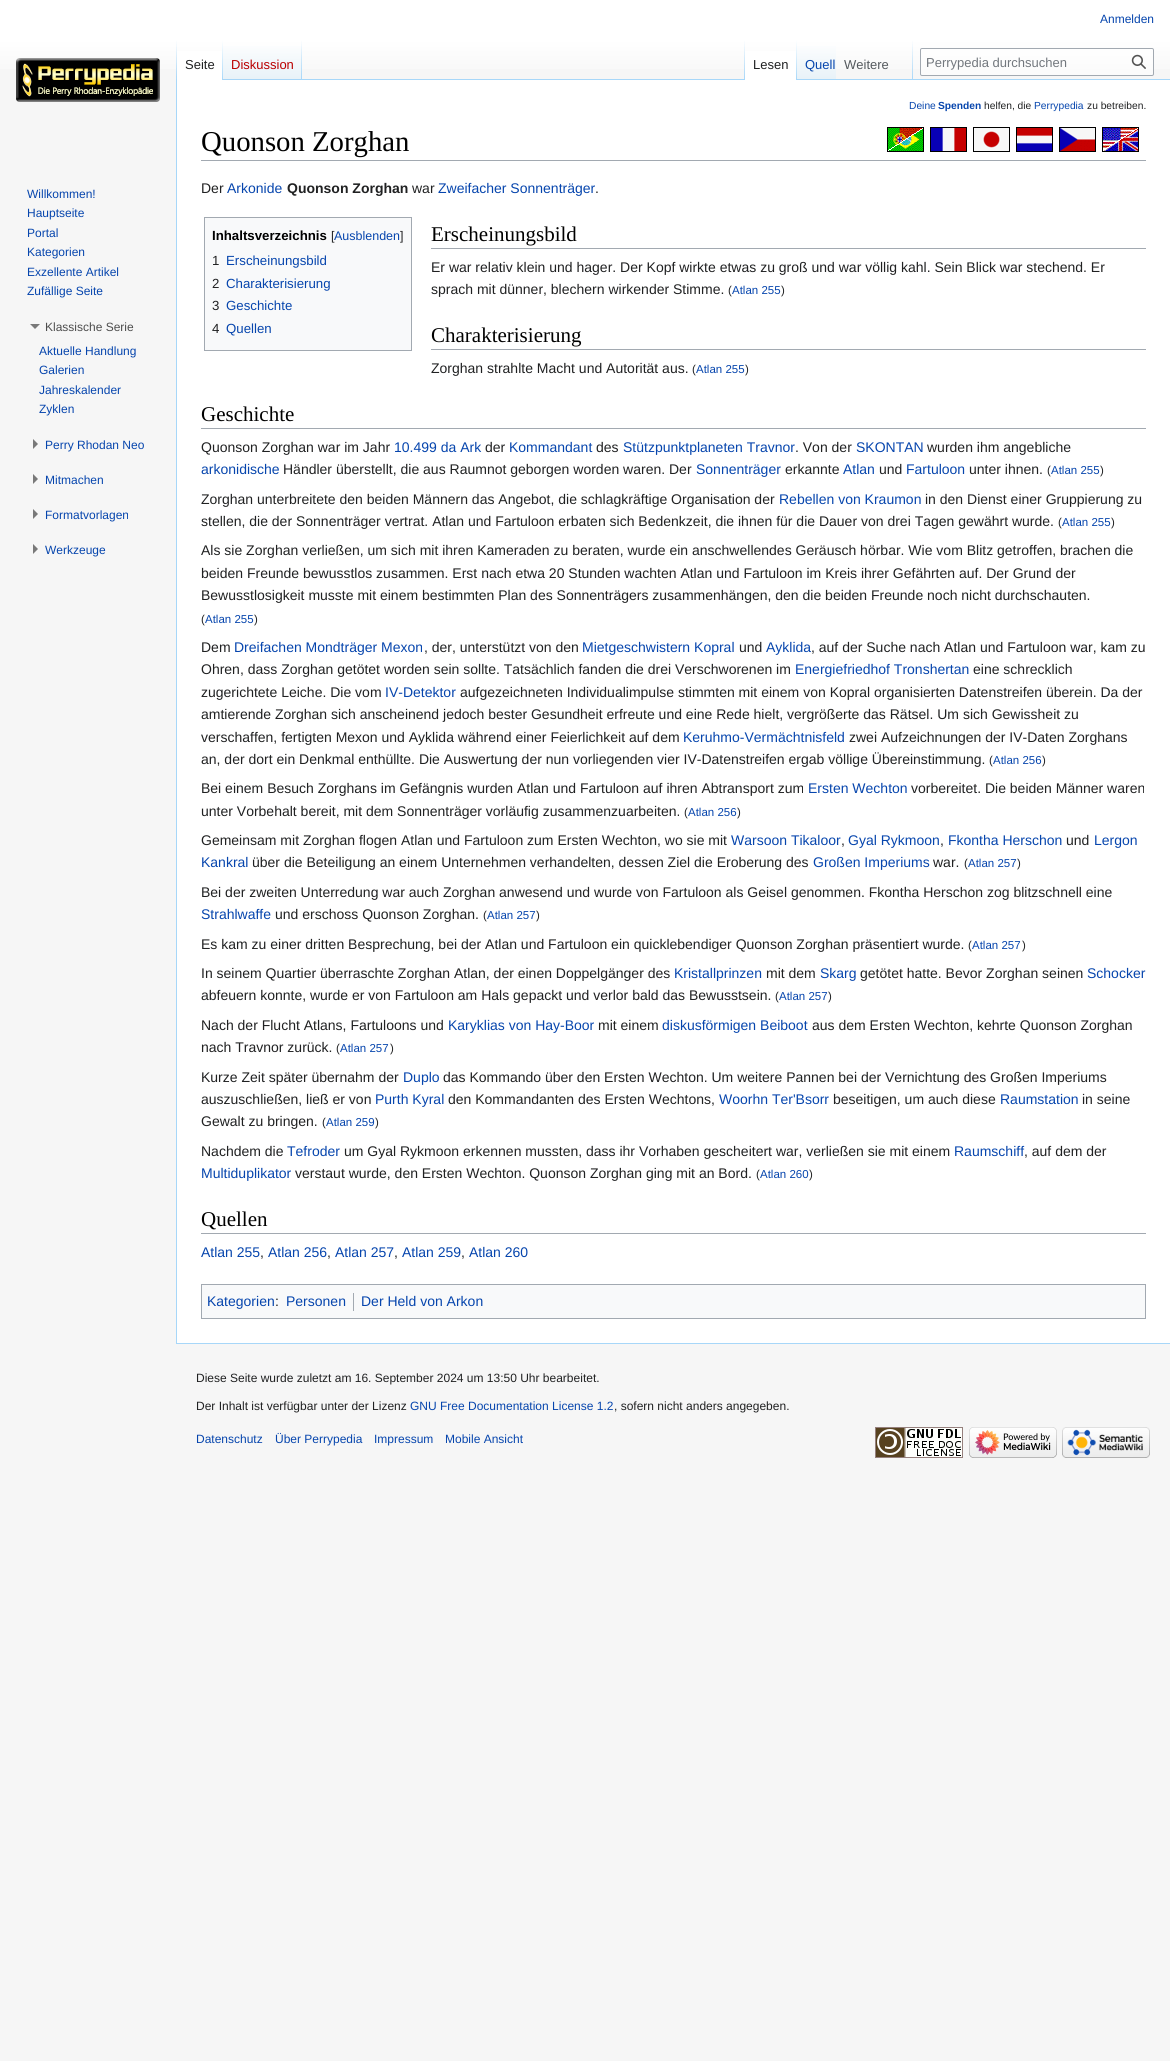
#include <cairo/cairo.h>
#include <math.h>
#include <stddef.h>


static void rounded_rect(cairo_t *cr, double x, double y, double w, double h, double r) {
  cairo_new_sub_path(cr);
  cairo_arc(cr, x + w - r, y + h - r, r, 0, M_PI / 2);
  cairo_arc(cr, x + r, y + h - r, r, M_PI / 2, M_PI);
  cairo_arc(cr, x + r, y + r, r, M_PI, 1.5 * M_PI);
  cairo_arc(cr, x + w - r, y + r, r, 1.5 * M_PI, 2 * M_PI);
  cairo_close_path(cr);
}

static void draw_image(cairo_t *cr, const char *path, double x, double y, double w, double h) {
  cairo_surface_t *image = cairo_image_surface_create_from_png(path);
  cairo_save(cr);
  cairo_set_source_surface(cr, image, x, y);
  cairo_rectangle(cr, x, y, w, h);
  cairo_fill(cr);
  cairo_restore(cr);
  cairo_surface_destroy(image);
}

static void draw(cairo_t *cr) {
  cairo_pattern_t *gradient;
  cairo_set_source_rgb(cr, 246 / 255.0, 246 / 255.0, 246 / 255.0);
  cairo_paint(cr);
  gradient = cairo_pattern_create_linear(585, 0, 585, 80);
  cairo_pattern_add_color_stop_rgba(gradient, 0.5, 1, 1, 1, 1);
  cairo_pattern_add_color_stop_rgba(gradient, 1, 246 / 255.0, 246 / 255.0, 246 / 255.0, 1);
  cairo_set_source(cr, gradient);
  cairo_pattern_destroy(gradient);
  cairo_rectangle(cr, 0, 0, 1170, 69);
  cairo_fill(cr);
  cairo_set_source_rgb(cr, 167 / 255.0, 215 / 255.0, 249 / 255.0);
  cairo_rectangle(cr, 176, 1343, 994, 1);
  cairo_fill(cr);
  cairo_rectangle(cr, 176, 79, 1, 1265);
  cairo_fill(cr);
  gradient = cairo_pattern_create_linear(177, 40, 177, 80);
  cairo_pattern_add_color_stop_rgba(gradient, 0, 167 / 255.0, 215 / 255.0, 249 / 255.0, 0);
  cairo_pattern_add_color_stop_rgba(gradient, 1, 167 / 255.0, 215 / 255.0, 249 / 255.0, 1);
  cairo_set_source(cr, gradient);
  cairo_pattern_destroy(gradient);
  cairo_rectangle(cr, 176, 40, 1, 40);
  cairo_fill(cr);
  cairo_set_source_rgb(cr, 1, 1, 1);
  cairo_rectangle(cr, 177, 51, 45, 29);
  cairo_fill(cr);
  gradient = cairo_pattern_create_linear(223, 40, 223, 80);
  cairo_pattern_add_color_stop_rgba(gradient, 0, 1, 1, 1, 1);
  cairo_pattern_add_color_stop_rgba(gradient, 1, 167 / 255.0, 215 / 255.0, 249 / 255.0, 1);
  cairo_set_source(cr, gradient);
  cairo_pattern_destroy(gradient);
  cairo_rectangle(cr, 222, 40, 1, 40);
  cairo_fill(cr);
  gradient = cairo_pattern_create_linear(263, 80, 263, 40);
  cairo_pattern_add_color_stop_rgba(gradient, 0, 119 / 255.0, 193 / 255.0, 246 / 255.0, 1);
  cairo_pattern_add_color_stop_rgba(gradient, 0.03, 232 / 255.0, 242 / 255.0, 248 / 255.0, 1);
  cairo_pattern_add_color_stop_rgba(gradient, 1, 1, 1, 1, 1);
  cairo_set_source(cr, gradient);
  cairo_pattern_destroy(gradient);
  cairo_rectangle(cr, 223, 46, 79, 34);
  cairo_fill(cr);
  gradient = cairo_pattern_create_linear(302, 40, 302, 80);
  cairo_pattern_add_color_stop_rgba(gradient, 0, 167 / 255.0, 215 / 255.0, 249 / 255.0, 0);
  cairo_pattern_add_color_stop_rgba(gradient, 1, 167 / 255.0, 215 / 255.0, 249 / 255.0, 1);
  cairo_set_source(cr, gradient);
  cairo_pattern_destroy(gradient);
  cairo_rectangle(cr, 301, 40, 1, 40);
  cairo_fill(cr);
  cairo_set_source_rgb(cr, 167 / 255.0, 215 / 255.0, 249 / 255.0);
  cairo_rectangle(cr, 302, 79, 868, 1);
  cairo_fill(cr);
  gradient = cairo_pattern_create_linear(745, 40, 745, 80);
  cairo_pattern_add_color_stop_rgba(gradient, 0, 167 / 255.0, 215 / 255.0, 249 / 255.0, 0);
  cairo_pattern_add_color_stop_rgba(gradient, 1, 167 / 255.0, 215 / 255.0, 249 / 255.0, 1);
  cairo_set_source(cr, gradient);
  cairo_pattern_destroy(gradient);
  cairo_rectangle(cr, 744, 40, 1, 40);
  cairo_fill(cr);
  cairo_set_source_rgb(cr, 1, 1, 1);
  cairo_rectangle(cr, 745, 51, 51, 29);
  cairo_fill(cr);
  gradient = cairo_pattern_create_linear(797, 40, 797, 80);
  cairo_pattern_add_color_stop_rgba(gradient, 0, 1, 1, 1, 1);
  cairo_pattern_add_color_stop_rgba(gradient, 1, 167 / 255.0, 215 / 255.0, 249 / 255.0, 1);
  cairo_set_source(cr, gradient);
  cairo_pattern_destroy(gradient);
  cairo_rectangle(cr, 796, 40, 1, 40);
  cairo_fill(cr);
  gradient = cairo_pattern_create_linear(817, 80, 817, 40);
  cairo_pattern_add_color_stop_rgba(gradient, 0, 119 / 255.0, 193 / 255.0, 246 / 255.0, 1);
  cairo_pattern_add_color_stop_rgba(gradient, 0.03, 232 / 255.0, 242 / 255.0, 248 / 255.0, 1);
  cairo_pattern_add_color_stop_rgba(gradient, 1, 1, 1, 1, 1);
  cairo_set_source(cr, gradient);
  cairo_pattern_destroy(gradient);
  cairo_rectangle(cr, 797, 46, 39, 33);
  cairo_fill(cr);
  gradient = cairo_pattern_create_linear(913, 40, 913, 80);
  cairo_pattern_add_color_stop_rgba(gradient, 0, 167 / 255.0, 215 / 255.0, 249 / 255.0, 0);
  cairo_pattern_add_color_stop_rgba(gradient, 1, 167 / 255.0, 215 / 255.0, 249 / 255.0, 1);
  cairo_set_source(cr, gradient);
  cairo_pattern_destroy(gradient);
  cairo_rectangle(cr, 912, 40, 1, 40);
  cairo_fill(cr);
  cairo_set_source_rgba(cr, 1, 1, 1, 0.5);
  rounded_rect(cr, 920.5, 48.5, 233, 27, 1.5);
  cairo_fill_preserve(cr);
  cairo_set_source_rgb(cr, 162 / 255.0, 169 / 255.0, 177 / 255.0);
  cairo_set_line_width(cr, 1);
  cairo_stroke(cr);
  draw_image(cr, "images/1.png", 1131, 54, 15, 15);
  draw_image(cr, "images/2.png", 16, 58, 144, 44);
  cairo_set_source_rgb(cr, 121 / 255.0, 121 / 255.0, 121 / 255.0);
  cairo_new_path(cr);
  cairo_move_to(cr, 40, 324);
  cairo_line_to(cr, 35, 329);
  cairo_line_to(cr, 30, 324);
  cairo_close_path(cr);
  cairo_fill(cr);
  cairo_new_path(cr);
  cairo_move_to(cr, 33, 439);
  cairo_line_to(cr, 38, 444);
  cairo_line_to(cr, 33, 449);
  cairo_close_path(cr);
  cairo_fill(cr);
  cairo_new_path(cr);
  cairo_move_to(cr, 33, 474);
  cairo_line_to(cr, 38, 479);
  cairo_line_to(cr, 33, 484);
  cairo_close_path(cr);
  cairo_fill(cr);
  cairo_new_path(cr);
  cairo_move_to(cr, 33, 509);
  cairo_line_to(cr, 38, 514);
  cairo_line_to(cr, 33, 519);
  cairo_close_path(cr);
  cairo_fill(cr);
  cairo_new_path(cr);
  cairo_move_to(cr, 33, 544);
  cairo_line_to(cr, 38, 549);
  cairo_line_to(cr, 33, 554);
  cairo_close_path(cr);
  cairo_fill(cr);
  cairo_set_source_rgb(cr, 1, 1, 1);
  cairo_rectangle(cr, 177, 80, 993, 1263);
  cairo_fill(cr);
  cairo_set_source_rgb(cr, 162 / 255.0, 169 / 255.0, 177 / 255.0);
  cairo_rectangle(cr, 201, 160, 945, 1);
  cairo_fill(cr);
  draw_image(cr, "images/3.png", 887, 127, 37, 25);
  draw_image(cr, "images/4.png", 930, 127, 37, 25);
  draw_image(cr, "images/5.png", 973, 127, 37, 25);
  draw_image(cr, "images/6.png", 1016, 127, 37, 25);
  draw_image(cr, "images/7.png", 1059, 127, 37, 25);
  draw_image(cr, "images/8.png", 1102, 127, 37, 25);
  cairo_set_source_rgb(cr, 248 / 255.0, 249 / 255.0, 250 / 255.0);
  cairo_rectangle(cr, 204.5, 217.5, 207, 133);
  cairo_fill_preserve(cr);
  cairo_set_source_rgb(cr, 162 / 255.0, 169 / 255.0, 177 / 255.0);
  cairo_stroke(cr);
  cairo_rectangle(cr, 431, 248, 715, 1);
  cairo_fill(cr);
  cairo_rectangle(cr, 431, 349, 715, 1);
  cairo_fill(cr);
  cairo_rectangle(cr, 201, 428, 945, 1);
  cairo_fill(cr);
  cairo_rectangle(cr, 201, 1233, 945, 1);
  cairo_fill(cr);
  cairo_set_source_rgb(cr, 248 / 255.0, 249 / 255.0, 250 / 255.0);
  cairo_rectangle(cr, 201.5, 1284.5, 944, 34);
  cairo_fill_preserve(cr);
  cairo_set_source_rgb(cr, 162 / 255.0, 169 / 255.0, 177 / 255.0);
  cairo_stroke(cr);
  cairo_rectangle(cr, 353, 1293, 1, 18);
  cairo_fill(cr);
  draw_image(cr, "images/9.png", 875, 1427, 88, 31);
  draw_image(cr, "images/10.png", 969, 1427, 88, 31);
  draw_image(cr, "images/11.png", 1062, 1427, 88, 31);
  cairo_select_font_face(cr, "Liberation Sans", CAIRO_FONT_SLANT_NORMAL, CAIRO_FONT_WEIGHT_NORMAL);
  cairo_set_font_size(cr, 12);
  cairo_set_source_rgb(cr, 6 / 255.0, 69 / 255.0, 173 / 255.0);
  cairo_move_to(cr, 1100, 23);
  cairo_show_text(cr, "Anmelden");
  cairo_set_font_size(cr, 13);
  cairo_set_source_rgb(cr, 32 / 255.0, 33 / 255.0, 34 / 255.0);
  cairo_move_to(cr, 185, 69);
  cairo_show_text(cr, "Seite");
  cairo_set_source_rgb(cr, 186 / 255.0, 0, 0);
  cairo_move_to(cr, 231, 69);
  cairo_show_text(cr, "Diskussion");
  cairo_set_source_rgb(cr, 32 / 255.0, 33 / 255.0, 34 / 255.0);
  cairo_move_to(cr, 753, 69);
  cairo_show_text(cr, "Lesen");
  cairo_set_source_rgb(cr, 6 / 255.0, 69 / 255.0, 173 / 255.0);
  cairo_move_to(cr, 805, 69);
  cairo_show_text(cr, "Quell");
  cairo_set_source_rgb(cr, 84 / 255.0, 89 / 255.0, 93 / 255.0);
  cairo_move_to(cr, 844, 69);
  cairo_show_text(cr, "Weitere");
  cairo_set_source_rgb(cr, 114 / 255.0, 119 / 255.0, 125 / 255.0);
  cairo_move_to(cr, 926, 67);
  cairo_show_text(cr, "Perrypedia durchsuchen");
  cairo_set_font_size(cr, 12);
  cairo_set_source_rgb(cr, 6 / 255.0, 69 / 255.0, 173 / 255.0);
  cairo_move_to(cr, 27, 198);
  cairo_show_text(cr, "Willkommen!");
  cairo_move_to(cr, 27, 217);
  cairo_show_text(cr, "Hauptseite");
  cairo_move_to(cr, 27, 237);
  cairo_show_text(cr, "Portal");
  cairo_move_to(cr, 27, 256);
  cairo_show_text(cr, "Kategorien");
  cairo_move_to(cr, 27, 276);
  cairo_show_text(cr, "Exzellente Artikel");
  cairo_move_to(cr, 27, 295);
  cairo_show_text(cr, "Zufällige Seite");
  cairo_set_source_rgb(cr, 77 / 255.0, 77 / 255.0, 77 / 255.0);
  cairo_move_to(cr, 45, 331);
  cairo_show_text(cr, "Klassische Serie");
  cairo_set_source_rgb(cr, 6 / 255.0, 69 / 255.0, 173 / 255.0);
  cairo_move_to(cr, 39, 355);
  cairo_show_text(cr, "Aktuelle Handlung");
  cairo_move_to(cr, 39, 374);
  cairo_show_text(cr, "Galerien");
  cairo_move_to(cr, 39, 394);
  cairo_show_text(cr, "Jahreskalender");
  cairo_move_to(cr, 39, 413);
  cairo_show_text(cr, "Zyklen");
  cairo_move_to(cr, 45, 449);
  cairo_show_text(cr, "Perry Rhodan Neo");
  cairo_move_to(cr, 45, 484);
  cairo_show_text(cr, "Mitmachen");
  cairo_move_to(cr, 45, 519);
  cairo_show_text(cr, "Formatvorlagen");
  cairo_move_to(cr, 45, 554);
  cairo_show_text(cr, "Werkzeuge");
  cairo_set_font_size(cr, 10.25);
  cairo_move_to(cr, 909, 109);
  cairo_show_text(cr, "Deine");
  cairo_select_font_face(cr, "Liberation Sans", CAIRO_FONT_SLANT_NORMAL, CAIRO_FONT_WEIGHT_BOLD);
  cairo_move_to(cr, 938, 109);
  cairo_show_text(cr, "Spenden");
  cairo_select_font_face(cr, "Liberation Sans", CAIRO_FONT_SLANT_NORMAL, CAIRO_FONT_WEIGHT_NORMAL);
  cairo_set_source_rgb(cr, 32 / 255.0, 33 / 255.0, 34 / 255.0);
  cairo_move_to(cr, 984, 109);
  cairo_show_text(cr, "helfen, die");
  cairo_set_source_rgb(cr, 6 / 255.0, 69 / 255.0, 173 / 255.0);
  cairo_move_to(cr, 1034, 109);
  cairo_show_text(cr, "Perrypedia");
  cairo_set_source_rgb(cr, 32 / 255.0, 33 / 255.0, 34 / 255.0);
  cairo_move_to(cr, 1087, 109);
  cairo_show_text(cr, "zu betreiben.");
  cairo_select_font_face(cr, "Liberation Serif", CAIRO_FONT_SLANT_NORMAL, CAIRO_FONT_WEIGHT_NORMAL);
  cairo_set_font_size(cr, 28.75);
  cairo_set_source_rgb(cr, 0, 0, 0);
  cairo_move_to(cr, 201, 151);
  cairo_show_text(cr, "Quonson Zorghan");
  cairo_select_font_face(cr, "Liberation Sans", CAIRO_FONT_SLANT_NORMAL, CAIRO_FONT_WEIGHT_NORMAL);
  cairo_set_font_size(cr, 14);
  cairo_set_source_rgb(cr, 32 / 255.0, 33 / 255.0, 34 / 255.0);
  cairo_move_to(cr, 201, 193);
  cairo_show_text(cr, "Der");
  cairo_set_source_rgb(cr, 6 / 255.0, 69 / 255.0, 173 / 255.0);
  cairo_move_to(cr, 227, 193);
  cairo_show_text(cr, "Arkonide");
  cairo_select_font_face(cr, "Liberation Sans", CAIRO_FONT_SLANT_NORMAL, CAIRO_FONT_WEIGHT_BOLD);
  cairo_set_source_rgb(cr, 32 / 255.0, 33 / 255.0, 34 / 255.0);
  cairo_move_to(cr, 287, 193);
  cairo_show_text(cr, "Quonson Zorghan");
  cairo_select_font_face(cr, "Liberation Sans", CAIRO_FONT_SLANT_NORMAL, CAIRO_FONT_WEIGHT_NORMAL);
  cairo_move_to(cr, 412, 193);
  cairo_show_text(cr, "war");
  cairo_set_source_rgb(cr, 6 / 255.0, 69 / 255.0, 173 / 255.0);
  cairo_move_to(cr, 438, 193);
  cairo_show_text(cr, "Zweifacher Sonnenträger");
  cairo_set_source_rgb(cr, 32 / 255.0, 33 / 255.0, 34 / 255.0);
  cairo_move_to(cr, 595, 193);
  cairo_show_text(cr, ".");
  cairo_select_font_face(cr, "Liberation Sans", CAIRO_FONT_SLANT_NORMAL, CAIRO_FONT_WEIGHT_BOLD);
  cairo_set_font_size(cr, 13.25);
  cairo_set_source_rgb(cr, 0, 0, 0);
  cairo_move_to(cr, 212, 240);
  cairo_show_text(cr, "Inhaltsverzeichnis");
  cairo_select_font_face(cr, "Liberation Sans", CAIRO_FONT_SLANT_NORMAL, CAIRO_FONT_WEIGHT_NORMAL);
  cairo_set_font_size(cr, 12.5);
  cairo_set_source_rgb(cr, 32 / 255.0, 33 / 255.0, 34 / 255.0);
  cairo_move_to(cr, 331, 240);
  cairo_show_text(cr, "[");
  cairo_set_source_rgb(cr, 6 / 255.0, 69 / 255.0, 173 / 255.0);
  cairo_move_to(cr, 334, 240);
  cairo_show_text(cr, "Ausblenden");
  cairo_set_source_rgb(cr, 32 / 255.0, 33 / 255.0, 34 / 255.0);
  cairo_move_to(cr, 400, 240);
  cairo_show_text(cr, "]");
  cairo_set_font_size(cr, 13.25);
  cairo_move_to(cr, 212, 265);
  cairo_show_text(cr, "1");
  cairo_set_source_rgb(cr, 6 / 255.0, 69 / 255.0, 173 / 255.0);
  cairo_move_to(cr, 226, 265);
  cairo_show_text(cr, "Erscheinungsbild");
  cairo_set_source_rgb(cr, 32 / 255.0, 33 / 255.0, 34 / 255.0);
  cairo_move_to(cr, 212, 288);
  cairo_show_text(cr, "2");
  cairo_set_source_rgb(cr, 6 / 255.0, 69 / 255.0, 173 / 255.0);
  cairo_move_to(cr, 226, 288);
  cairo_show_text(cr, "Charakterisierung");
  cairo_set_source_rgb(cr, 32 / 255.0, 33 / 255.0, 34 / 255.0);
  cairo_move_to(cr, 212, 310);
  cairo_show_text(cr, "3");
  cairo_set_source_rgb(cr, 6 / 255.0, 69 / 255.0, 173 / 255.0);
  cairo_move_to(cr, 226, 310);
  cairo_show_text(cr, "Geschichte");
  cairo_set_source_rgb(cr, 32 / 255.0, 33 / 255.0, 34 / 255.0);
  cairo_move_to(cr, 212, 333);
  cairo_show_text(cr, "4");
  cairo_set_source_rgb(cr, 6 / 255.0, 69 / 255.0, 173 / 255.0);
  cairo_move_to(cr, 226, 333);
  cairo_show_text(cr, "Quellen");
  cairo_select_font_face(cr, "Liberation Serif", CAIRO_FONT_SLANT_NORMAL, CAIRO_FONT_WEIGHT_NORMAL);
  cairo_set_font_size(cr, 21);
  cairo_set_source_rgb(cr, 0, 0, 0);
  cairo_move_to(cr, 431, 241);
  cairo_show_text(cr, "Erscheinungsbild");
  cairo_select_font_face(cr, "Liberation Sans", CAIRO_FONT_SLANT_NORMAL, CAIRO_FONT_WEIGHT_NORMAL);
  cairo_set_font_size(cr, 14);
  cairo_set_source_rgb(cr, 32 / 255.0, 33 / 255.0, 34 / 255.0);
  cairo_move_to(cr, 431, 272);
  cairo_show_text(cr, "Er war relativ klein und hager. Der Kopf wirkte etwas zu groß und war völlig kahl. Sein Blick war stechend. Er");
  cairo_move_to(cr, 431, 294);
  cairo_show_text(cr, "sprach mit dünner, blechern wirkender Stimme.");
  cairo_set_font_size(cr, 11.5);
  cairo_move_to(cr, 728, 294);
  cairo_show_text(cr, "(");
  cairo_set_source_rgb(cr, 6 / 255.0, 69 / 255.0, 173 / 255.0);
  cairo_move_to(cr, 732, 294);
  cairo_show_text(cr, "Atlan 255");
  cairo_set_source_rgb(cr, 32 / 255.0, 33 / 255.0, 34 / 255.0);
  cairo_move_to(cr, 781, 294);
  cairo_show_text(cr, ")");
  cairo_select_font_face(cr, "Liberation Serif", CAIRO_FONT_SLANT_NORMAL, CAIRO_FONT_WEIGHT_NORMAL);
  cairo_set_font_size(cr, 21);
  cairo_set_source_rgb(cr, 0, 0, 0);
  cairo_move_to(cr, 431, 342);
  cairo_show_text(cr, "Charakterisierung");
  cairo_select_font_face(cr, "Liberation Sans", CAIRO_FONT_SLANT_NORMAL, CAIRO_FONT_WEIGHT_NORMAL);
  cairo_set_font_size(cr, 14);
  cairo_set_source_rgb(cr, 32 / 255.0, 33 / 255.0, 34 / 255.0);
  cairo_move_to(cr, 431, 373);
  cairo_show_text(cr, "Zorghan strahlte Macht und Autorität aus.");
  cairo_set_font_size(cr, 11.5);
  cairo_move_to(cr, 692, 373);
  cairo_show_text(cr, "(");
  cairo_set_source_rgb(cr, 6 / 255.0, 69 / 255.0, 173 / 255.0);
  cairo_move_to(cr, 696, 373);
  cairo_show_text(cr, "Atlan 255");
  cairo_set_source_rgb(cr, 32 / 255.0, 33 / 255.0, 34 / 255.0);
  cairo_move_to(cr, 745, 373);
  cairo_show_text(cr, ")");
  cairo_select_font_face(cr, "Liberation Serif", CAIRO_FONT_SLANT_NORMAL, CAIRO_FONT_WEIGHT_NORMAL);
  cairo_set_font_size(cr, 21);
  cairo_set_source_rgb(cr, 0, 0, 0);
  cairo_move_to(cr, 201, 421);
  cairo_show_text(cr, "Geschichte");
  cairo_select_font_face(cr, "Liberation Sans", CAIRO_FONT_SLANT_NORMAL, CAIRO_FONT_WEIGHT_NORMAL);
  cairo_set_font_size(cr, 14);
  cairo_set_source_rgb(cr, 32 / 255.0, 33 / 255.0, 34 / 255.0);
  cairo_move_to(cr, 201, 452);
  cairo_show_text(cr, "Quonson Zorghan war im Jahr");
  cairo_set_source_rgb(cr, 6 / 255.0, 69 / 255.0, 173 / 255.0);
  cairo_move_to(cr, 394, 452);
  cairo_show_text(cr, "10.499 da Ark");
  cairo_set_source_rgb(cr, 32 / 255.0, 33 / 255.0, 34 / 255.0);
  cairo_move_to(cr, 485, 452);
  cairo_show_text(cr, "der");
  cairo_set_source_rgb(cr, 6 / 255.0, 69 / 255.0, 173 / 255.0);
  cairo_move_to(cr, 509, 452);
  cairo_show_text(cr, "Kommandant");
  cairo_set_source_rgb(cr, 32 / 255.0, 33 / 255.0, 34 / 255.0);
  cairo_move_to(cr, 596, 452);
  cairo_show_text(cr, "des");
  cairo_set_source_rgb(cr, 6 / 255.0, 69 / 255.0, 173 / 255.0);
  cairo_move_to(cr, 623, 452);
  cairo_show_text(cr, "Stützpunktplaneten Travnor");
  cairo_set_source_rgb(cr, 32 / 255.0, 33 / 255.0, 34 / 255.0);
  cairo_move_to(cr, 795, 452);
  cairo_show_text(cr, ". Von der");
  cairo_set_source_rgb(cr, 6 / 255.0, 69 / 255.0, 173 / 255.0);
  cairo_move_to(cr, 856, 452);
  cairo_show_text(cr, "SKONTAN");
  cairo_set_source_rgb(cr, 32 / 255.0, 33 / 255.0, 34 / 255.0);
  cairo_move_to(cr, 927, 452);
  cairo_show_text(cr, "wurden ihm angebliche");
  cairo_set_source_rgb(cr, 6 / 255.0, 69 / 255.0, 173 / 255.0);
  cairo_move_to(cr, 201, 474);
  cairo_show_text(cr, "arkonidische");
  cairo_set_source_rgb(cr, 32 / 255.0, 33 / 255.0, 34 / 255.0);
  cairo_move_to(cr, 283, 474);
  cairo_show_text(cr, "Händler überstellt, die aus Raumnot geborgen worden waren. Der");
  cairo_set_source_rgb(cr, 6 / 255.0, 69 / 255.0, 173 / 255.0);
  cairo_move_to(cr, 696, 474);
  cairo_show_text(cr, "Sonnenträger");
  cairo_set_source_rgb(cr, 32 / 255.0, 33 / 255.0, 34 / 255.0);
  cairo_move_to(cr, 785, 474);
  cairo_show_text(cr, "erkannte");
  cairo_set_source_rgb(cr, 6 / 255.0, 69 / 255.0, 173 / 255.0);
  cairo_move_to(cr, 843, 474);
  cairo_show_text(cr, "Atlan");
  cairo_set_source_rgb(cr, 32 / 255.0, 33 / 255.0, 34 / 255.0);
  cairo_move_to(cr, 879, 474);
  cairo_show_text(cr, "und");
  cairo_set_source_rgb(cr, 6 / 255.0, 69 / 255.0, 173 / 255.0);
  cairo_move_to(cr, 906, 474);
  cairo_show_text(cr, "Fartuloon");
  cairo_set_source_rgb(cr, 32 / 255.0, 33 / 255.0, 34 / 255.0);
  cairo_move_to(cr, 969, 474);
  cairo_show_text(cr, "unter ihnen.");
  cairo_set_font_size(cr, 11.5);
  cairo_move_to(cr, 1047, 474);
  cairo_show_text(cr, "(");
  cairo_set_source_rgb(cr, 6 / 255.0, 69 / 255.0, 173 / 255.0);
  cairo_move_to(cr, 1051, 474);
  cairo_show_text(cr, "Atlan 255");
  cairo_set_source_rgb(cr, 32 / 255.0, 33 / 255.0, 34 / 255.0);
  cairo_move_to(cr, 1100, 474);
  cairo_show_text(cr, ")");
  cairo_set_font_size(cr, 14);
  cairo_move_to(cr, 201, 504);
  cairo_show_text(cr, "Zorghan unterbreitete den beiden Männern das Angebot, die schlagkräftige Organisation der");
  cairo_set_source_rgb(cr, 6 / 255.0, 69 / 255.0, 173 / 255.0);
  cairo_move_to(cr, 779, 504);
  cairo_show_text(cr, "Rebellen von Kraumon");
  cairo_set_source_rgb(cr, 32 / 255.0, 33 / 255.0, 34 / 255.0);
  cairo_move_to(cr, 925, 504);
  cairo_show_text(cr, "in den Dienst einer Gruppierung zu");
  cairo_move_to(cr, 201, 526);
  cairo_show_text(cr, "stellen, die der Sonnenträger vertrat. Atlan und Fartuloon erbaten sich Bedenkzeit, die ihnen für die Dauer von drei Tagen gewährt wurde.");
  cairo_set_font_size(cr, 11.5);
  cairo_move_to(cr, 1058, 526);
  cairo_show_text(cr, "(");
  cairo_set_source_rgb(cr, 6 / 255.0, 69 / 255.0, 173 / 255.0);
  cairo_move_to(cr, 1062, 526);
  cairo_show_text(cr, "Atlan 255");
  cairo_set_source_rgb(cr, 32 / 255.0, 33 / 255.0, 34 / 255.0);
  cairo_move_to(cr, 1111, 526);
  cairo_show_text(cr, ")");
  cairo_set_font_size(cr, 14);
  cairo_move_to(cr, 201, 555);
  cairo_show_text(cr, "Als sie Zorghan verließen, um sich mit ihren Kameraden zu beraten, wurde ein anschwellendes Geräusch hörbar. Wie vom Blitz getroffen, brachen die");
  cairo_move_to(cr, 201, 578);
  cairo_show_text(cr, "beiden Freunde bewusstlos zusammen. Erst nach etwa 20 Stunden wachten Atlan und Fartuloon im Kreis ihrer Gefährten auf. Der Grund der");
  cairo_move_to(cr, 201, 600);
  cairo_show_text(cr, "Bewusstlosigkeit musste mit einem bestimmten Plan des Sonnenträgers zusammenhängen, den die beiden Freunde noch nicht durchschauten.");
  cairo_set_font_size(cr, 11.5);
  cairo_move_to(cr, 201, 623);
  cairo_show_text(cr, "(");
  cairo_set_source_rgb(cr, 6 / 255.0, 69 / 255.0, 173 / 255.0);
  cairo_move_to(cr, 205, 623);
  cairo_show_text(cr, "Atlan 255");
  cairo_set_source_rgb(cr, 32 / 255.0, 33 / 255.0, 34 / 255.0);
  cairo_move_to(cr, 254, 623);
  cairo_show_text(cr, ")");
  cairo_set_font_size(cr, 14);
  cairo_move_to(cr, 201, 652);
  cairo_show_text(cr, "Dem");
  cairo_set_source_rgb(cr, 6 / 255.0, 69 / 255.0, 173 / 255.0);
  cairo_move_to(cr, 234, 652);
  cairo_show_text(cr, "Dreifachen Mondträger Mexon");
  cairo_set_source_rgb(cr, 32 / 255.0, 33 / 255.0, 34 / 255.0);
  cairo_move_to(cr, 424, 652);
  cairo_show_text(cr, ", der, unterstützt von den");
  cairo_set_source_rgb(cr, 6 / 255.0, 69 / 255.0, 173 / 255.0);
  cairo_move_to(cr, 582, 652);
  cairo_show_text(cr, "Mietgeschwistern Kopral");
  cairo_set_source_rgb(cr, 32 / 255.0, 33 / 255.0, 34 / 255.0);
  cairo_move_to(cr, 739, 652);
  cairo_show_text(cr, "und");
  cairo_set_source_rgb(cr, 6 / 255.0, 69 / 255.0, 173 / 255.0);
  cairo_move_to(cr, 766, 652);
  cairo_show_text(cr, "Ayklida");
  cairo_set_source_rgb(cr, 32 / 255.0, 33 / 255.0, 34 / 255.0);
  cairo_move_to(cr, 811, 652);
  cairo_show_text(cr, ", auf der Suche nach Atlan und Fartuloon war, kam zu");
  cairo_move_to(cr, 201, 674);
  cairo_show_text(cr, "Ohren, dass Zorghan getötet worden sein sollte. Tatsächlich fanden die drei Verschworenen im");
  cairo_set_source_rgb(cr, 6 / 255.0, 69 / 255.0, 173 / 255.0);
  cairo_move_to(cr, 795, 674);
  cairo_show_text(cr, "Energiefriedhof Tronshertan");
  cairo_set_source_rgb(cr, 32 / 255.0, 33 / 255.0, 34 / 255.0);
  cairo_move_to(cr, 973, 674);
  cairo_show_text(cr, "eine schrecklich");
  cairo_move_to(cr, 201, 697);
  cairo_show_text(cr, "zugerichtete Leiche. Die vom");
  cairo_set_source_rgb(cr, 6 / 255.0, 69 / 255.0, 173 / 255.0);
  cairo_move_to(cr, 385, 697);
  cairo_show_text(cr, "IV-Detektor");
  cairo_set_source_rgb(cr, 32 / 255.0, 33 / 255.0, 34 / 255.0);
  cairo_move_to(cr, 460, 697);
  cairo_show_text(cr, "aufgezeichneten Individualimpulse stimmten mit einem von Kopral organisierten Datenstreifen überein. Da der");
  cairo_move_to(cr, 201, 719);
  cairo_show_text(cr, "amtierende Zorghan sich anscheinend jedoch bester Gesundheit erfreute und eine Rede hielt, vergrößerte das Rätsel. Um sich Gewissheit zu");
  cairo_move_to(cr, 201, 742);
  cairo_show_text(cr, "verschaffen, fertigten Mexon und Ayklida während einer Feierlichkeit auf dem");
  cairo_set_source_rgb(cr, 6 / 255.0, 69 / 255.0, 173 / 255.0);
  cairo_move_to(cr, 683, 742);
  cairo_show_text(cr, "Keruhmo-Vermächtnisfeld");
  cairo_set_source_rgb(cr, 32 / 255.0, 33 / 255.0, 34 / 255.0);
  cairo_move_to(cr, 849, 742);
  cairo_show_text(cr, "zwei Aufzeichnungen der IV-Daten Zorghans");
  cairo_move_to(cr, 201, 764);
  cairo_show_text(cr, "an, der dort ein Denkmal enthüllte. Die Auswertung der nun vorliegenden vier IV-Datenstreifen ergab völlige Übereinstimmung.");
  cairo_set_font_size(cr, 11.5);
  cairo_move_to(cr, 989, 764);
  cairo_show_text(cr, "(");
  cairo_set_source_rgb(cr, 6 / 255.0, 69 / 255.0, 173 / 255.0);
  cairo_move_to(cr, 993, 764);
  cairo_show_text(cr, "Atlan 256");
  cairo_set_source_rgb(cr, 32 / 255.0, 33 / 255.0, 34 / 255.0);
  cairo_move_to(cr, 1042, 764);
  cairo_show_text(cr, ")");
  cairo_set_font_size(cr, 14);
  cairo_move_to(cr, 201, 793);
  cairo_show_text(cr, "Bei einem Besuch Zorghans im Gefängnis wurden Atlan und Fartuloon auf ihren Abtransport zum");
  cairo_set_source_rgb(cr, 6 / 255.0, 69 / 255.0, 173 / 255.0);
  cairo_move_to(cr, 808, 793);
  cairo_show_text(cr, "Ersten Wechton");
  cairo_set_source_rgb(cr, 32 / 255.0, 33 / 255.0, 34 / 255.0);
  cairo_move_to(cr, 911, 793);
  cairo_show_text(cr, "vorbereitet. Die beiden Männer waren");
  cairo_move_to(cr, 201, 816);
  cairo_show_text(cr, "unter Vorbehalt bereit, mit dem Sonnenträger vorläufig zusammenzuarbeiten.");
  cairo_set_font_size(cr, 11.5);
  cairo_move_to(cr, 684, 816);
  cairo_show_text(cr, "(");
  cairo_set_source_rgb(cr, 6 / 255.0, 69 / 255.0, 173 / 255.0);
  cairo_move_to(cr, 688, 816);
  cairo_show_text(cr, "Atlan 256");
  cairo_set_source_rgb(cr, 32 / 255.0, 33 / 255.0, 34 / 255.0);
  cairo_move_to(cr, 737, 816);
  cairo_show_text(cr, ")");
  cairo_set_font_size(cr, 14);
  cairo_move_to(cr, 201, 845);
  cairo_show_text(cr, "Gemeinsam mit Zorghan flogen Atlan und Fartuloon zum Ersten Wechton, wo sie mit");
  cairo_set_source_rgb(cr, 6 / 255.0, 69 / 255.0, 173 / 255.0);
  cairo_move_to(cr, 731, 845);
  cairo_show_text(cr, "Warsoon Tikaloor");
  cairo_set_source_rgb(cr, 32 / 255.0, 33 / 255.0, 34 / 255.0);
  cairo_move_to(cr, 841, 845);
  cairo_show_text(cr, ",");
  cairo_set_source_rgb(cr, 6 / 255.0, 69 / 255.0, 173 / 255.0);
  cairo_move_to(cr, 848, 845);
  cairo_show_text(cr, "Gyal Rykmoon");
  cairo_set_source_rgb(cr, 32 / 255.0, 33 / 255.0, 34 / 255.0);
  cairo_move_to(cr, 940, 845);
  cairo_show_text(cr, ",");
  cairo_set_source_rgb(cr, 6 / 255.0, 69 / 255.0, 173 / 255.0);
  cairo_move_to(cr, 948, 845);
  cairo_show_text(cr, "Fkontha Herschon");
  cairo_set_source_rgb(cr, 32 / 255.0, 33 / 255.0, 34 / 255.0);
  cairo_move_to(cr, 1066, 845);
  cairo_show_text(cr, "und");
  cairo_set_source_rgb(cr, 6 / 255.0, 69 / 255.0, 173 / 255.0);
  cairo_move_to(cr, 1094, 845);
  cairo_show_text(cr, "Lergon");
  cairo_move_to(cr, 201, 867);
  cairo_show_text(cr, "Kankral");
  cairo_set_source_rgb(cr, 32 / 255.0, 33 / 255.0, 34 / 255.0);
  cairo_move_to(cr, 252, 867);
  cairo_show_text(cr, "über die Beteiligung an einem Unternehmen verhandelten, dessen Ziel die Eroberung des");
  cairo_set_source_rgb(cr, 6 / 255.0, 69 / 255.0, 173 / 255.0);
  cairo_move_to(cr, 813, 867);
  cairo_show_text(cr, "Großen Imperiums");
  cairo_set_source_rgb(cr, 32 / 255.0, 33 / 255.0, 34 / 255.0);
  cairo_move_to(cr, 933, 867);
  cairo_show_text(cr, "war.");
  cairo_set_font_size(cr, 11.5);
  cairo_move_to(cr, 964, 867);
  cairo_show_text(cr, "(");
  cairo_set_source_rgb(cr, 6 / 255.0, 69 / 255.0, 173 / 255.0);
  cairo_move_to(cr, 968, 867);
  cairo_show_text(cr, "Atlan 257");
  cairo_set_source_rgb(cr, 32 / 255.0, 33 / 255.0, 34 / 255.0);
  cairo_move_to(cr, 1017, 867);
  cairo_show_text(cr, ")");
  cairo_set_font_size(cr, 14);
  cairo_move_to(cr, 201, 897);
  cairo_show_text(cr, "Bei der zweiten Unterredung war auch Zorghan anwesend und wurde von Fartuloon als Geisel genommen. Fkontha Herschon zog blitzschnell eine");
  cairo_set_source_rgb(cr, 6 / 255.0, 69 / 255.0, 173 / 255.0);
  cairo_move_to(cr, 201, 919);
  cairo_show_text(cr, "Strahlwaffe");
  cairo_set_source_rgb(cr, 32 / 255.0, 33 / 255.0, 34 / 255.0);
  cairo_move_to(cr, 275, 919);
  cairo_show_text(cr, "und erschoss Quonson Zorghan.");
  cairo_set_font_size(cr, 11.5);
  cairo_move_to(cr, 483, 919);
  cairo_show_text(cr, "(");
  cairo_set_source_rgb(cr, 6 / 255.0, 69 / 255.0, 173 / 255.0);
  cairo_move_to(cr, 487, 919);
  cairo_show_text(cr, "Atlan 257");
  cairo_set_source_rgb(cr, 32 / 255.0, 33 / 255.0, 34 / 255.0);
  cairo_move_to(cr, 536, 919);
  cairo_show_text(cr, ")");
  cairo_set_font_size(cr, 14);
  cairo_move_to(cr, 201, 949);
  cairo_show_text(cr, "Es kam zu einer dritten Besprechung, bei der Atlan und Fartuloon ein quicklebendiger Quonson Zorghan präsentiert wurde.");
  cairo_set_font_size(cr, 11.5);
  cairo_move_to(cr, 968, 949);
  cairo_show_text(cr, "(");
  cairo_set_source_rgb(cr, 6 / 255.0, 69 / 255.0, 173 / 255.0);
  cairo_move_to(cr, 972, 949);
  cairo_show_text(cr, "Atlan 257");
  cairo_set_source_rgb(cr, 32 / 255.0, 33 / 255.0, 34 / 255.0);
  cairo_move_to(cr, 1022, 949);
  cairo_show_text(cr, ")");
  cairo_set_font_size(cr, 14);
  cairo_move_to(cr, 201, 978);
  cairo_show_text(cr, "In seinem Quartier überraschte Zorghan Atlan, der einen Doppelgänger des");
  cairo_set_source_rgb(cr, 6 / 255.0, 69 / 255.0, 173 / 255.0);
  cairo_move_to(cr, 674, 978);
  cairo_show_text(cr, "Kristallprinzen");
  cairo_set_source_rgb(cr, 32 / 255.0, 33 / 255.0, 34 / 255.0);
  cairo_move_to(cr, 766, 978);
  cairo_show_text(cr, "mit dem");
  cairo_set_source_rgb(cr, 6 / 255.0, 69 / 255.0, 173 / 255.0);
  cairo_move_to(cr, 820, 978);
  cairo_show_text(cr, "Skarg");
  cairo_set_source_rgb(cr, 32 / 255.0, 33 / 255.0, 34 / 255.0);
  cairo_move_to(cr, 860, 978);
  cairo_show_text(cr, "getötet hatte. Bevor Zorghan seinen");
  cairo_set_source_rgb(cr, 6 / 255.0, 69 / 255.0, 173 / 255.0);
  cairo_move_to(cr, 1087, 978);
  cairo_show_text(cr, "Schocker");
  cairo_set_source_rgb(cr, 32 / 255.0, 33 / 255.0, 34 / 255.0);
  cairo_move_to(cr, 201, 1000);
  cairo_show_text(cr, "abfeuern konnte, wurde er von Fartuloon am Hals gepackt und verlor bald das Bewusstsein.");
  cairo_set_font_size(cr, 11.5);
  cairo_move_to(cr, 775, 1000);
  cairo_show_text(cr, "(");
  cairo_set_source_rgb(cr, 6 / 255.0, 69 / 255.0, 173 / 255.0);
  cairo_move_to(cr, 779, 1000);
  cairo_show_text(cr, "Atlan 257");
  cairo_set_source_rgb(cr, 32 / 255.0, 33 / 255.0, 34 / 255.0);
  cairo_move_to(cr, 828, 1000);
  cairo_show_text(cr, ")");
  cairo_set_font_size(cr, 14);
  cairo_move_to(cr, 201, 1030);
  cairo_show_text(cr, "Nach der Flucht Atlans, Fartuloons und");
  cairo_set_source_rgb(cr, 6 / 255.0, 69 / 255.0, 173 / 255.0);
  cairo_move_to(cr, 448, 1030);
  cairo_show_text(cr, "Karyklias von Hay-Boor");
  cairo_set_source_rgb(cr, 32 / 255.0, 33 / 255.0, 34 / 255.0);
  cairo_move_to(cr, 598, 1030);
  cairo_show_text(cr, "mit einem");
  cairo_set_source_rgb(cr, 6 / 255.0, 69 / 255.0, 173 / 255.0);
  cairo_move_to(cr, 662, 1030);
  cairo_show_text(cr, "diskusförmigen Beiboot");
  cairo_set_source_rgb(cr, 32 / 255.0, 33 / 255.0, 34 / 255.0);
  cairo_move_to(cr, 812, 1030);
  cairo_show_text(cr, "aus dem Ersten Wechton, kehrte Quonson Zorghan");
  cairo_move_to(cr, 201, 1052);
  cairo_show_text(cr, "nach Travnor zurück.");
  cairo_set_font_size(cr, 11.5);
  cairo_move_to(cr, 336, 1052);
  cairo_show_text(cr, "(");
  cairo_set_source_rgb(cr, 6 / 255.0, 69 / 255.0, 173 / 255.0);
  cairo_move_to(cr, 340, 1052);
  cairo_show_text(cr, "Atlan 257");
  cairo_set_source_rgb(cr, 32 / 255.0, 33 / 255.0, 34 / 255.0);
  cairo_move_to(cr, 390, 1052);
  cairo_show_text(cr, ")");
  cairo_set_font_size(cr, 14);
  cairo_move_to(cr, 201, 1082);
  cairo_show_text(cr, "Kurze Zeit später übernahm der");
  cairo_set_source_rgb(cr, 6 / 255.0, 69 / 255.0, 173 / 255.0);
  cairo_move_to(cr, 403, 1082);
  cairo_show_text(cr, "Duplo");
  cairo_set_source_rgb(cr, 32 / 255.0, 33 / 255.0, 34 / 255.0);
  cairo_move_to(cr, 443, 1082);
  cairo_show_text(cr, "das Kommando über den Ersten Wechton. Um weitere Pannen bei der Vernichtung des Großen Imperiums");
  cairo_move_to(cr, 201, 1104);
  cairo_show_text(cr, "auszuschließen, ließ er von");
  cairo_set_source_rgb(cr, 6 / 255.0, 69 / 255.0, 173 / 255.0);
  cairo_move_to(cr, 375, 1104);
  cairo_show_text(cr, "Purth Kyral");
  cairo_set_source_rgb(cr, 32 / 255.0, 33 / 255.0, 34 / 255.0);
  cairo_move_to(cr, 448, 1104);
  cairo_show_text(cr, "den Kommandanten des Ersten Wechtons,");
  cairo_set_source_rgb(cr, 6 / 255.0, 69 / 255.0, 173 / 255.0);
  cairo_move_to(cr, 719, 1104);
  cairo_show_text(cr, "Woorhn Ter'Bsorr");
  cairo_set_source_rgb(cr, 32 / 255.0, 33 / 255.0, 34 / 255.0);
  cairo_move_to(cr, 833, 1104);
  cairo_show_text(cr, "beseitigen, um auch diese");
  cairo_set_source_rgb(cr, 6 / 255.0, 69 / 255.0, 173 / 255.0);
  cairo_move_to(cr, 1000, 1104);
  cairo_show_text(cr, "Raumstation");
  cairo_set_source_rgb(cr, 32 / 255.0, 33 / 255.0, 34 / 255.0);
  cairo_move_to(cr, 1082, 1104);
  cairo_show_text(cr, "in seine");
  cairo_move_to(cr, 201, 1126);
  cairo_show_text(cr, "Gewalt zu bringen.");
  cairo_set_font_size(cr, 11.5);
  cairo_move_to(cr, 322, 1126);
  cairo_show_text(cr, "(");
  cairo_set_source_rgb(cr, 6 / 255.0, 69 / 255.0, 173 / 255.0);
  cairo_move_to(cr, 326, 1126);
  cairo_show_text(cr, "Atlan 259");
  cairo_set_source_rgb(cr, 32 / 255.0, 33 / 255.0, 34 / 255.0);
  cairo_move_to(cr, 375, 1126);
  cairo_show_text(cr, ")");
  cairo_set_font_size(cr, 14);
  cairo_move_to(cr, 201, 1156);
  cairo_show_text(cr, "Nachdem die");
  cairo_set_source_rgb(cr, 6 / 255.0, 69 / 255.0, 173 / 255.0);
  cairo_move_to(cr, 287, 1156);
  cairo_show_text(cr, "Tefroder");
  cairo_set_source_rgb(cr, 32 / 255.0, 33 / 255.0, 34 / 255.0);
  cairo_move_to(cr, 344, 1156);
  cairo_show_text(cr, "um Gyal Rykmoon erkennen mussten, dass ihr Vorhaben gescheitert war, verließen sie mit einem");
  cairo_set_source_rgb(cr, 6 / 255.0, 69 / 255.0, 173 / 255.0);
  cairo_move_to(cr, 954, 1156);
  cairo_show_text(cr, "Raumschiff");
  cairo_set_source_rgb(cr, 32 / 255.0, 33 / 255.0, 34 / 255.0);
  cairo_move_to(cr, 1024, 1156);
  cairo_show_text(cr, ", auf dem der");
  cairo_set_source_rgb(cr, 6 / 255.0, 69 / 255.0, 173 / 255.0);
  cairo_move_to(cr, 201, 1178);
  cairo_show_text(cr, "Multiduplikator");
  cairo_set_source_rgb(cr, 32 / 255.0, 33 / 255.0, 34 / 255.0);
  cairo_move_to(cr, 295, 1178);
  cairo_show_text(cr, "verstaut wurde, den Ersten Wechton. Quonson Zorghan ging mit an Bord.");
  cairo_set_font_size(cr, 11.5);
  cairo_move_to(cr, 756, 1178);
  cairo_show_text(cr, "(");
  cairo_set_source_rgb(cr, 6 / 255.0, 69 / 255.0, 173 / 255.0);
  cairo_move_to(cr, 760, 1178);
  cairo_show_text(cr, "Atlan 260");
  cairo_set_source_rgb(cr, 32 / 255.0, 33 / 255.0, 34 / 255.0);
  cairo_move_to(cr, 809, 1178);
  cairo_show_text(cr, ")");
  cairo_select_font_face(cr, "Liberation Serif", CAIRO_FONT_SLANT_NORMAL, CAIRO_FONT_WEIGHT_NORMAL);
  cairo_set_font_size(cr, 21);
  cairo_set_source_rgb(cr, 0, 0, 0);
  cairo_move_to(cr, 201, 1226);
  cairo_show_text(cr, "Quellen");
  cairo_select_font_face(cr, "Liberation Sans", CAIRO_FONT_SLANT_NORMAL, CAIRO_FONT_WEIGHT_NORMAL);
  cairo_set_font_size(cr, 14);
  cairo_set_source_rgb(cr, 6 / 255.0, 69 / 255.0, 173 / 255.0);
  cairo_move_to(cr, 201, 1257);
  cairo_show_text(cr, "Atlan 255");
  cairo_set_source_rgb(cr, 32 / 255.0, 33 / 255.0, 34 / 255.0);
  cairo_move_to(cr, 260, 1257);
  cairo_show_text(cr, ",");
  cairo_set_source_rgb(cr, 6 / 255.0, 69 / 255.0, 173 / 255.0);
  cairo_move_to(cr, 268, 1257);
  cairo_show_text(cr, "Atlan 256");
  cairo_set_source_rgb(cr, 32 / 255.0, 33 / 255.0, 34 / 255.0);
  cairo_move_to(cr, 327, 1257);
  cairo_show_text(cr, ",");
  cairo_set_source_rgb(cr, 6 / 255.0, 69 / 255.0, 173 / 255.0);
  cairo_move_to(cr, 335, 1257);
  cairo_show_text(cr, "Atlan 257");
  cairo_set_source_rgb(cr, 32 / 255.0, 33 / 255.0, 34 / 255.0);
  cairo_move_to(cr, 394, 1257);
  cairo_show_text(cr, ",");
  cairo_set_source_rgb(cr, 6 / 255.0, 69 / 255.0, 173 / 255.0);
  cairo_move_to(cr, 402, 1257);
  cairo_show_text(cr, "Atlan 259");
  cairo_set_source_rgb(cr, 32 / 255.0, 33 / 255.0, 34 / 255.0);
  cairo_move_to(cr, 461, 1257);
  cairo_show_text(cr, ",");
  cairo_set_source_rgb(cr, 6 / 255.0, 69 / 255.0, 173 / 255.0);
  cairo_move_to(cr, 469, 1257);
  cairo_show_text(cr, "Atlan 260");
  cairo_move_to(cr, 207, 1306);
  cairo_show_text(cr, "Kategorien");
  cairo_set_source_rgb(cr, 32 / 255.0, 33 / 255.0, 34 / 255.0);
  cairo_move_to(cr, 275, 1306);
  cairo_show_text(cr, ":");
  cairo_set_source_rgb(cr, 6 / 255.0, 69 / 255.0, 173 / 255.0);
  cairo_move_to(cr, 286, 1306);
  cairo_show_text(cr, "Personen");
  cairo_move_to(cr, 361, 1306);
  cairo_show_text(cr, "Der Held von Arkon");
  cairo_set_font_size(cr, 12);
  cairo_set_source_rgb(cr, 32 / 255.0, 33 / 255.0, 34 / 255.0);
  cairo_move_to(cr, 196, 1382);
  cairo_show_text(cr, "Diese Seite wurde zuletzt am 16. September 2024 um 13:50 Uhr bearbeitet.");
  cairo_move_to(cr, 196, 1410);
  cairo_show_text(cr, "Der Inhalt ist verfügbar unter der Lizenz");
  cairo_set_source_rgb(cr, 6 / 255.0, 69 / 255.0, 173 / 255.0);
  cairo_move_to(cr, 410, 1410);
  cairo_show_text(cr, "GNU Free Documentation License 1.2");
  cairo_set_source_rgb(cr, 32 / 255.0, 33 / 255.0, 34 / 255.0);
  cairo_move_to(cr, 614, 1410);
  cairo_show_text(cr, ", sofern nicht anders angegeben.");
  cairo_set_source_rgb(cr, 6 / 255.0, 69 / 255.0, 173 / 255.0);
  cairo_move_to(cr, 196, 1443);
  cairo_show_text(cr, "Datenschutz");
  cairo_move_to(cr, 275, 1443);
  cairo_show_text(cr, "Über Perrypedia");
  cairo_move_to(cr, 374, 1443);
  cairo_show_text(cr, "Impressum");
  cairo_move_to(cr, 445, 1443);
  cairo_show_text(cr, "Mobile Ansicht");
}

int main(void) {
  cairo_surface_t *surface = cairo_image_surface_create(CAIRO_FORMAT_RGB24, 1170, 2061);
  cairo_t *cr = cairo_create(surface);
  cairo_font_options_t *options = cairo_font_options_create();
  cairo_font_options_set_hint_metrics(options, CAIRO_HINT_METRICS_OFF);
  cairo_font_options_set_hint_style(options, CAIRO_HINT_STYLE_NONE);
  cairo_set_font_options(cr, options);
  cairo_set_miter_limit(cr, 4);
  draw(cr);
  cairo_surface_write_to_png(surface, "out.png");
  cairo_font_options_destroy(options);
  cairo_destroy(cr);
  cairo_surface_destroy(surface);
  return 0;
}
